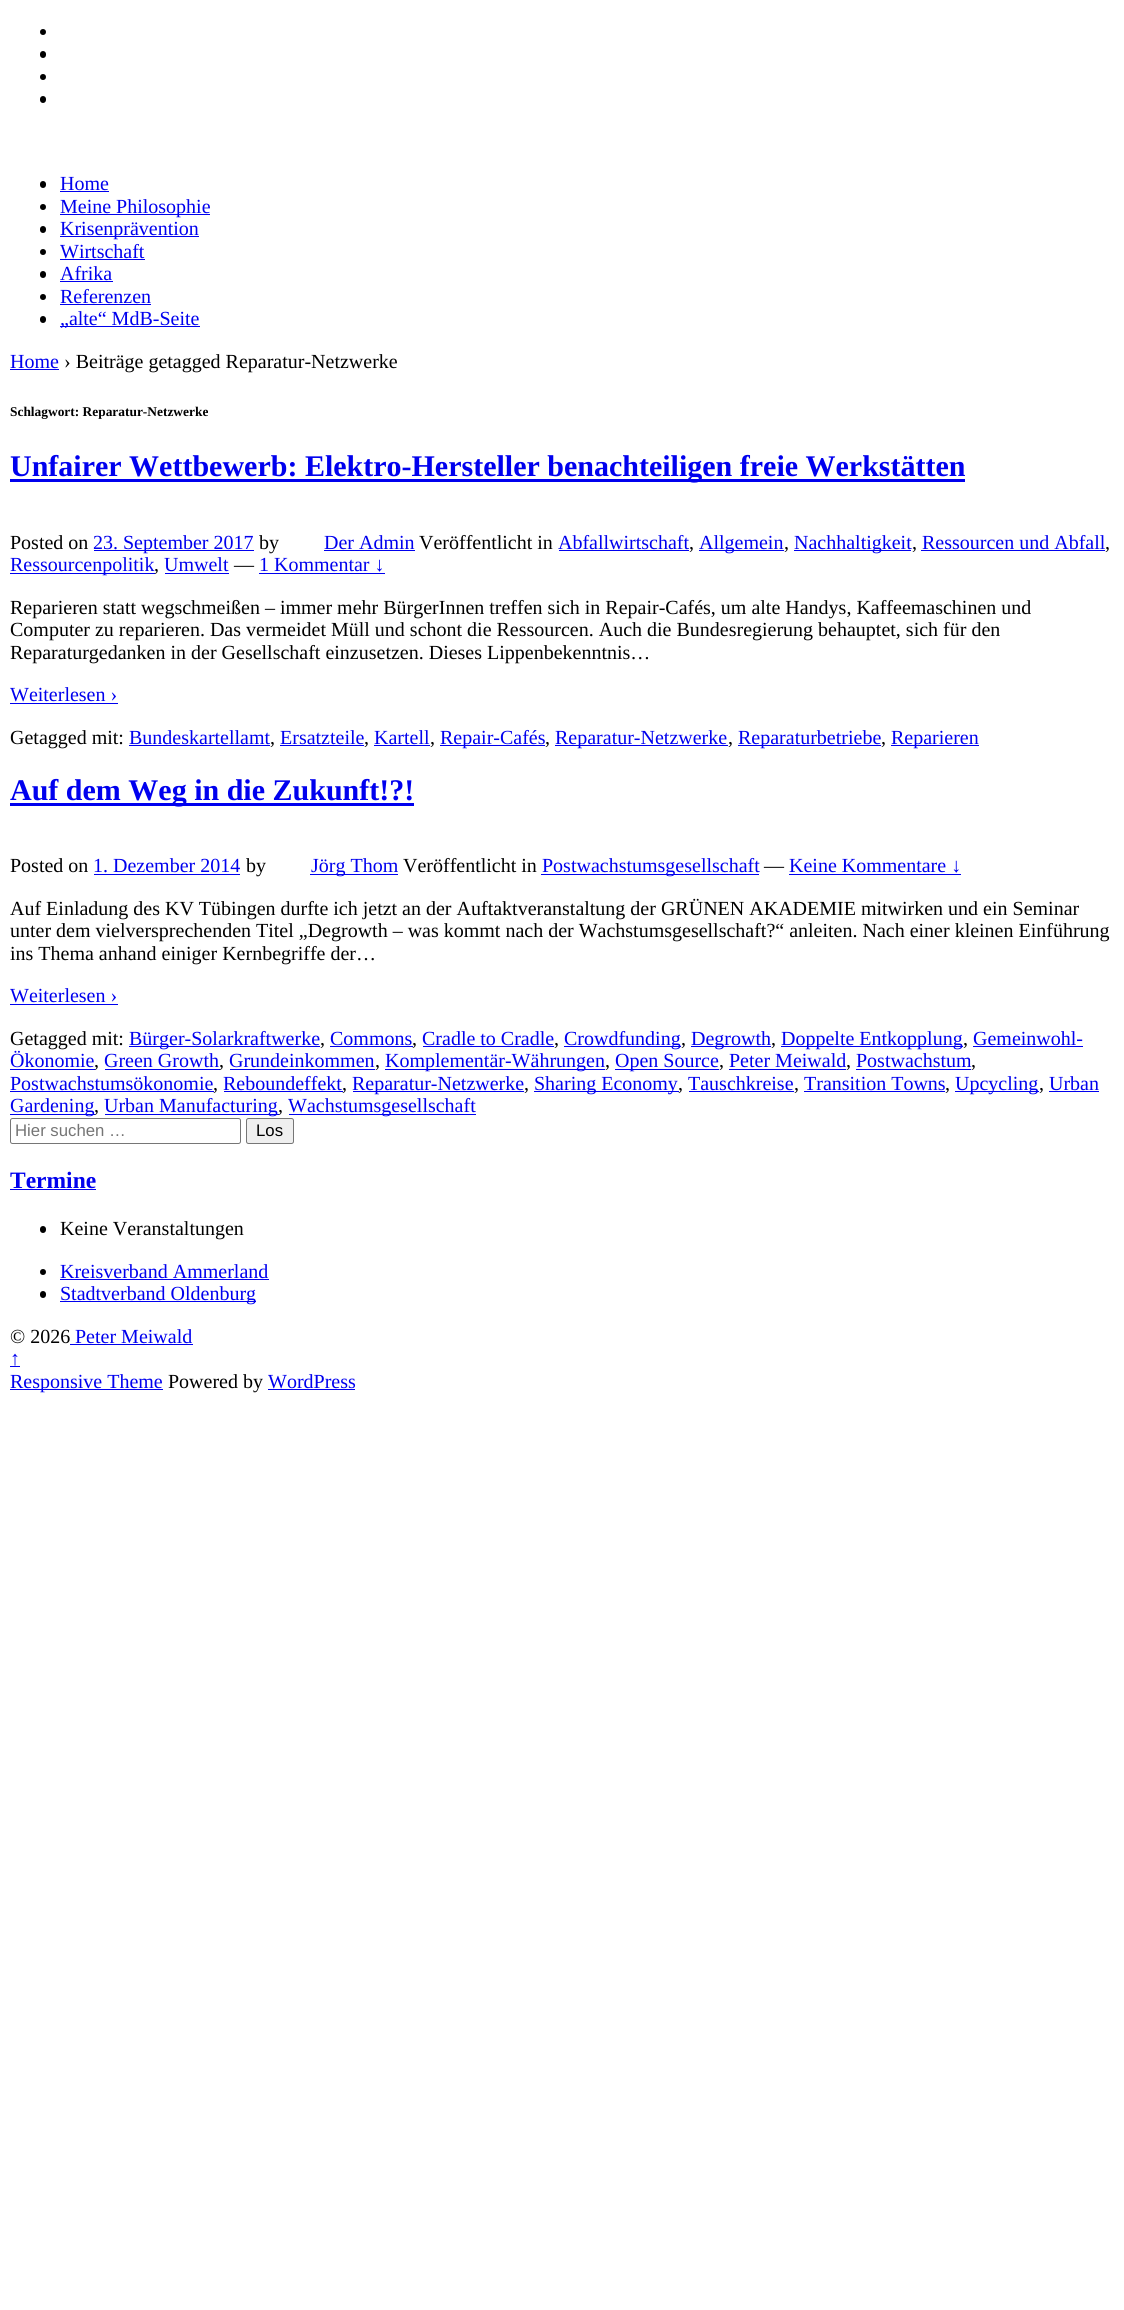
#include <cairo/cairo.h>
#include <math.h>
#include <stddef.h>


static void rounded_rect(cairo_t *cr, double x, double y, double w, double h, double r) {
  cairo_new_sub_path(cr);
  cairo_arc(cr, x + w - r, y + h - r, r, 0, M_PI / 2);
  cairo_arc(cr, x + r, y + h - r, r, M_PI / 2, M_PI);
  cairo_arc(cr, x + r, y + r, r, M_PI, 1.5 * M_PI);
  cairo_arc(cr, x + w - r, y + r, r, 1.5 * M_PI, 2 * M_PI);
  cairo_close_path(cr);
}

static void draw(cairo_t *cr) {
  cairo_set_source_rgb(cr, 1, 1, 1);
  cairo_paint(cr);
  cairo_set_source_rgb(cr, 0, 0, 0);
  cairo_arc(cr, 43, 32, 3, 0, 2 * M_PI);
  cairo_fill(cr);
  rounded_rect(cr, 40, 51, 6, 7, 3);
  cairo_fill(cr);
  cairo_arc(cr, 43, 77, 3, 0, 2 * M_PI);
  cairo_fill(cr);
  rounded_rect(cr, 40, 96, 6, 7, 3);
  cairo_fill(cr);
  rounded_rect(cr, 40, 181, 6, 7, 3);
  cairo_fill(cr);
  cairo_set_source_rgb(cr, 0, 0, 238 / 255.0);
  cairo_rectangle(cr, 60, 191, 49, 1);
  cairo_fill(cr);
  cairo_set_source_rgb(cr, 0, 0, 0);
  cairo_arc(cr, 43, 207, 3, 0, 2 * M_PI);
  cairo_fill(cr);
  cairo_set_source_rgb(cr, 0, 0, 238 / 255.0);
  cairo_rectangle(cr, 60, 214, 150, 1);
  cairo_fill(cr);
  cairo_set_source_rgb(cr, 0, 0, 0);
  rounded_rect(cr, 40, 226, 6, 7, 3);
  cairo_fill(cr);
  cairo_set_source_rgb(cr, 0, 0, 238 / 255.0);
  cairo_rectangle(cr, 60, 236, 139, 1);
  cairo_fill(cr);
  cairo_set_source_rgb(cr, 0, 0, 0);
  cairo_arc(cr, 43, 252, 3, 0, 2 * M_PI);
  cairo_fill(cr);
  cairo_set_source_rgb(cr, 0, 0, 238 / 255.0);
  cairo_rectangle(cr, 60, 259, 85, 1);
  cairo_fill(cr);
  cairo_set_source_rgb(cr, 0, 0, 0);
  rounded_rect(cr, 40, 271, 6, 7, 3);
  cairo_fill(cr);
  cairo_set_source_rgb(cr, 0, 0, 238 / 255.0);
  cairo_rectangle(cr, 60, 281, 53, 1);
  cairo_fill(cr);
  cairo_set_source_rgb(cr, 0, 0, 0);
  cairo_arc(cr, 43, 297, 3, 0, 2 * M_PI);
  cairo_fill(cr);
  cairo_set_source_rgb(cr, 0, 0, 238 / 255.0);
  cairo_rectangle(cr, 60, 304, 91, 1);
  cairo_fill(cr);
  cairo_set_source_rgb(cr, 0, 0, 0);
  rounded_rect(cr, 40, 316, 6, 7, 3);
  cairo_fill(cr);
  cairo_set_source_rgb(cr, 0, 0, 238 / 255.0);
  cairo_rectangle(cr, 60, 326, 140, 1);
  cairo_fill(cr);
  cairo_rectangle(cr, 10, 369, 49, 1);
  cairo_fill(cr);
  cairo_rectangle(cr, 10, 479, 955, 3);
  cairo_fill(cr);
  cairo_rectangle(cr, 94, 550, 160, 1);
  cairo_fill(cr);
  cairo_rectangle(cr, 324, 550, 91, 1);
  cairo_fill(cr);
  cairo_rectangle(cr, 559, 550, 130, 1);
  cairo_fill(cr);
  cairo_rectangle(cr, 699, 550, 85, 1);
  cairo_fill(cr);
  cairo_rectangle(cr, 794, 550, 117, 1);
  cairo_fill(cr);
  cairo_rectangle(cr, 921, 550, 184, 1);
  cairo_fill(cr);
  cairo_rectangle(cr, 259, 573, 126, 1);
  cairo_fill(cr);
  cairo_rectangle(cr, 10, 573, 145, 1);
  cairo_fill(cr);
  cairo_rectangle(cr, 165, 573, 64, 1);
  cairo_fill(cr);
  cairo_rectangle(cr, 10, 703, 108, 1);
  cairo_fill(cr);
  cairo_rectangle(cr, 129, 745, 141, 1);
  cairo_fill(cr);
  cairo_rectangle(cr, 280, 745, 84, 1);
  cairo_fill(cr);
  cairo_rectangle(cr, 374, 745, 56, 1);
  cairo_fill(cr);
  cairo_rectangle(cr, 440, 745, 105, 1);
  cairo_fill(cr);
  cairo_rectangle(cr, 555, 745, 173, 1);
  cairo_fill(cr);
  cairo_rectangle(cr, 738, 745, 143, 1);
  cairo_fill(cr);
  cairo_rectangle(cr, 891, 745, 88, 1);
  cairo_fill(cr);
  cairo_rectangle(cr, 10, 803, 404, 3);
  cairo_fill(cr);
  cairo_rectangle(cr, 94, 874, 146, 1);
  cairo_fill(cr);
  cairo_rectangle(cr, 310, 874, 88, 1);
  cairo_fill(cr);
  cairo_rectangle(cr, 541, 874, 218, 1);
  cairo_fill(cr);
  cairo_rectangle(cr, 789, 874, 172, 1);
  cairo_fill(cr);
  cairo_rectangle(cr, 10, 1004, 108, 1);
  cairo_fill(cr);
  cairo_rectangle(cr, 129, 1046, 191, 1);
  cairo_fill(cr);
  cairo_rectangle(cr, 330, 1046, 83, 1);
  cairo_fill(cr);
  cairo_rectangle(cr, 423, 1046, 131, 1);
  cairo_fill(cr);
  cairo_rectangle(cr, 564, 1046, 117, 1);
  cairo_fill(cr);
  cairo_rectangle(cr, 691, 1046, 80, 1);
  cairo_fill(cr);
  cairo_rectangle(cr, 781, 1046, 182, 1);
  cairo_fill(cr);
  cairo_rectangle(cr, 973, 1046, 110, 1);
  cairo_fill(cr);
  cairo_rectangle(cr, 10, 1069, 85, 1);
  cairo_fill(cr);
  cairo_rectangle(cr, 105, 1069, 115, 1);
  cairo_fill(cr);
  cairo_rectangle(cr, 230, 1069, 145, 1);
  cairo_fill(cr);
  cairo_rectangle(cr, 385, 1069, 220, 1);
  cairo_fill(cr);
  cairo_rectangle(cr, 615, 1069, 104, 1);
  cairo_fill(cr);
  cairo_rectangle(cr, 729, 1069, 117, 1);
  cairo_fill(cr);
  cairo_rectangle(cr, 856, 1069, 115, 1);
  cairo_fill(cr);
  cairo_rectangle(cr, 10, 1091, 204, 1);
  cairo_fill(cr);
  cairo_rectangle(cr, 224, 1091, 119, 1);
  cairo_fill(cr);
  cairo_rectangle(cr, 353, 1091, 171, 1);
  cairo_fill(cr);
  cairo_rectangle(cr, 534, 1091, 145, 1);
  cairo_fill(cr);
  cairo_rectangle(cr, 689, 1091, 105, 1);
  cairo_fill(cr);
  cairo_rectangle(cr, 804, 1091, 141, 1);
  cairo_fill(cr);
  cairo_rectangle(cr, 955, 1091, 84, 1);
  cairo_fill(cr);
  cairo_rectangle(cr, 1049, 1091, 50, 1);
  cairo_fill(cr);
  cairo_rectangle(cr, 10, 1114, 85, 1);
  cairo_fill(cr);
  cairo_rectangle(cr, 105, 1114, 174, 1);
  cairo_fill(cr);
  cairo_rectangle(cr, 289, 1114, 187, 1);
  cairo_fill(cr);
  rounded_rect(cr, 10.5, 1118.5, 230, 25, 2);
  cairo_set_source_rgb(cr, 118 / 255.0, 118 / 255.0, 118 / 255.0);
  cairo_set_line_width(cr, 1);
  cairo_stroke(cr);
  cairo_set_source_rgb(cr, 239 / 255.0, 239 / 255.0, 239 / 255.0);
  rounded_rect(cr, 246.5, 1118.5, 47, 25, 2);
  cairo_fill_preserve(cr);
  cairo_set_source_rgb(cr, 118 / 255.0, 118 / 255.0, 118 / 255.0);
  cairo_stroke(cr);
  cairo_set_source_rgb(cr, 0, 0, 238 / 255.0);
  cairo_rectangle(cr, 10, 1189, 86, 1);
  cairo_fill(cr);
  cairo_set_source_rgb(cr, 0, 0, 0);
  rounded_rect(cr, 40, 1226, 6, 7, 3);
  cairo_fill(cr);
  cairo_arc(cr, 43, 1272, 3, 0, 2 * M_PI);
  cairo_fill(cr);
  cairo_set_source_rgb(cr, 0, 0, 238 / 255.0);
  cairo_rectangle(cr, 60, 1279, 209, 1);
  cairo_fill(cr);
  cairo_set_source_rgb(cr, 0, 0, 0);
  rounded_rect(cr, 40, 1291, 6, 7, 3);
  cairo_fill(cr);
  cairo_set_source_rgb(cr, 0, 0, 238 / 255.0);
  cairo_rectangle(cr, 60, 1301, 196, 1);
  cairo_fill(cr);
  cairo_rectangle(cr, 70, 1344, 123, 1);
  cairo_fill(cr);
  cairo_rectangle(cr, 10, 1366, 10, 1);
  cairo_fill(cr);
  cairo_rectangle(cr, 10, 1389, 153, 1);
  cairo_fill(cr);
  cairo_rectangle(cr, 268, 1389, 87, 1);
  cairo_fill(cr);
  cairo_select_font_face(cr, "Liberation Serif", CAIRO_FONT_SLANT_NORMAL, CAIRO_FONT_WEIGHT_NORMAL);
  cairo_set_font_size(cr, 20);
  cairo_move_to(cr, 60, 190);
  cairo_show_text(cr, "Home");
  cairo_move_to(cr, 60, 213);
  cairo_show_text(cr, "Meine Philosophie");
  cairo_move_to(cr, 60, 235);
  cairo_show_text(cr, "Krisenprävention");
  cairo_move_to(cr, 60, 258);
  cairo_show_text(cr, "Wirtschaft");
  cairo_move_to(cr, 60, 280);
  cairo_show_text(cr, "Afrika");
  cairo_move_to(cr, 60, 303);
  cairo_show_text(cr, "Referenzen");
  cairo_move_to(cr, 60, 325);
  cairo_show_text(cr, "„alte“ MdB-Seite");
  cairo_move_to(cr, 10, 368);
  cairo_show_text(cr, "Home");
  cairo_set_source_rgb(cr, 0, 0, 0);
  cairo_move_to(cr, 64, 368);
  cairo_show_text(cr, "› Beiträge getagged Reparatur-Netzwerke");
  cairo_select_font_face(cr, "Liberation Serif", CAIRO_FONT_SLANT_NORMAL, CAIRO_FONT_WEIGHT_BOLD);
  cairo_set_font_size(cr, 13.4);
  cairo_move_to(cr, 10, 416);
  cairo_show_text(cr, "Schlagwort: Reparatur-Netzwerke");
  cairo_set_font_size(cr, 30);
  cairo_set_source_rgb(cr, 0, 0, 238 / 255.0);
  cairo_move_to(cr, 10, 476);
  cairo_show_text(cr, "Unfairer Wettbewerb: Elektro-Hersteller benachteiligen freie Werkstätten");
  cairo_select_font_face(cr, "Liberation Serif", CAIRO_FONT_SLANT_NORMAL, CAIRO_FONT_WEIGHT_NORMAL);
  cairo_set_font_size(cr, 20);
  cairo_set_source_rgb(cr, 0, 0, 0);
  cairo_move_to(cr, 10, 549);
  cairo_show_text(cr, "Posted on");
  cairo_set_source_rgb(cr, 0, 0, 238 / 255.0);
  cairo_move_to(cr, 93, 549);
  cairo_show_text(cr, "23. September 2017");
  cairo_set_source_rgb(cr, 0, 0, 0);
  cairo_move_to(cr, 259, 549);
  cairo_show_text(cr, "by");
  cairo_set_source_rgb(cr, 0, 0, 238 / 255.0);
  cairo_move_to(cr, 324, 549);
  cairo_show_text(cr, "Der Admin");
  cairo_set_source_rgb(cr, 0, 0, 0);
  cairo_move_to(cr, 419, 549);
  cairo_show_text(cr, "Veröffentlicht in");
  cairo_set_source_rgb(cr, 0, 0, 238 / 255.0);
  cairo_move_to(cr, 558, 549);
  cairo_show_text(cr, "Abfallwirtschaft");
  cairo_set_source_rgb(cr, 0, 0, 0);
  cairo_move_to(cr, 689, 549);
  cairo_show_text(cr, ",");
  cairo_set_source_rgb(cr, 0, 0, 238 / 255.0);
  cairo_move_to(cr, 699, 549);
  cairo_show_text(cr, "Allgemein");
  cairo_set_source_rgb(cr, 0, 0, 0);
  cairo_move_to(cr, 784, 549);
  cairo_show_text(cr, ",");
  cairo_set_source_rgb(cr, 0, 0, 238 / 255.0);
  cairo_move_to(cr, 794, 549);
  cairo_show_text(cr, "Nachhaltigkeit");
  cairo_set_source_rgb(cr, 0, 0, 0);
  cairo_move_to(cr, 912, 549);
  cairo_show_text(cr, ",");
  cairo_set_source_rgb(cr, 0, 0, 238 / 255.0);
  cairo_move_to(cr, 922, 549);
  cairo_show_text(cr, "Ressourcen und Abfall");
  cairo_set_source_rgb(cr, 0, 0, 0);
  cairo_move_to(cr, 1105, 549);
  cairo_show_text(cr, ",");
  cairo_set_source_rgb(cr, 0, 0, 238 / 255.0);
  cairo_move_to(cr, 10, 571);
  cairo_show_text(cr, "Ressourcenpolitik");
  cairo_move_to(cr, 164, 571);
  cairo_show_text(cr, "Umwelt");
  cairo_set_source_rgb(cr, 0, 0, 0);
  cairo_move_to(cr, 234, 571);
  cairo_show_text(cr, "—");
  cairo_set_source_rgb(cr, 0, 0, 238 / 255.0);
  cairo_move_to(cr, 259, 571);
  cairo_show_text(cr, "1 Kommentar ↓");
  cairo_set_source_rgb(cr, 0, 0, 0);
  cairo_move_to(cr, 154, 571);
  cairo_show_text(cr, ",");
  cairo_move_to(cr, 10, 614);
  cairo_show_text(cr, "Reparieren statt wegschmeißen – immer mehr BürgerInnen treffen sich in Repair-Cafés, um alte Handys, Kaffeemaschinen und");
  cairo_move_to(cr, 10, 636);
  cairo_show_text(cr, "Computer zu reparieren. Das vermeidet Müll und schont die Ressourcen. Auch die Bundesregierung behauptet, sich für den");
  cairo_move_to(cr, 10, 659);
  cairo_show_text(cr, "Reparaturgedanken in der Gesellschaft einzusetzen. Dieses Lippenbekenntnis…");
  cairo_set_source_rgb(cr, 0, 0, 238 / 255.0);
  cairo_move_to(cr, 10, 701);
  cairo_show_text(cr, "Weiterlesen ›");
  cairo_set_source_rgb(cr, 0, 0, 0);
  cairo_move_to(cr, 10, 744);
  cairo_show_text(cr, "Getagged mit:");
  cairo_set_source_rgb(cr, 0, 0, 238 / 255.0);
  cairo_move_to(cr, 129, 744);
  cairo_show_text(cr, "Bundeskartellamt");
  cairo_set_source_rgb(cr, 0, 0, 0);
  cairo_move_to(cr, 270, 744);
  cairo_show_text(cr, ",");
  cairo_set_source_rgb(cr, 0, 0, 238 / 255.0);
  cairo_move_to(cr, 280, 744);
  cairo_show_text(cr, "Ersatzteile");
  cairo_set_source_rgb(cr, 0, 0, 0);
  cairo_move_to(cr, 364, 744);
  cairo_show_text(cr, ",");
  cairo_set_source_rgb(cr, 0, 0, 238 / 255.0);
  cairo_move_to(cr, 374, 744);
  cairo_show_text(cr, "Kartell");
  cairo_set_source_rgb(cr, 0, 0, 0);
  cairo_move_to(cr, 430, 744);
  cairo_show_text(cr, ",");
  cairo_set_source_rgb(cr, 0, 0, 238 / 255.0);
  cairo_move_to(cr, 440, 744);
  cairo_show_text(cr, "Repair-Cafés");
  cairo_set_source_rgb(cr, 0, 0, 0);
  cairo_move_to(cr, 545, 744);
  cairo_show_text(cr, ",");
  cairo_set_source_rgb(cr, 0, 0, 238 / 255.0);
  cairo_move_to(cr, 555, 744);
  cairo_show_text(cr, "Reparatur-Netzwerke");
  cairo_set_source_rgb(cr, 0, 0, 0);
  cairo_move_to(cr, 728, 744);
  cairo_show_text(cr, ",");
  cairo_set_source_rgb(cr, 0, 0, 238 / 255.0);
  cairo_move_to(cr, 738, 744);
  cairo_show_text(cr, "Reparaturbetriebe");
  cairo_set_source_rgb(cr, 0, 0, 0);
  cairo_move_to(cr, 881, 744);
  cairo_show_text(cr, ",");
  cairo_set_source_rgb(cr, 0, 0, 238 / 255.0);
  cairo_move_to(cr, 891, 744);
  cairo_show_text(cr, "Reparieren");
  cairo_select_font_face(cr, "Liberation Serif", CAIRO_FONT_SLANT_NORMAL, CAIRO_FONT_WEIGHT_BOLD);
  cairo_set_font_size(cr, 30);
  cairo_move_to(cr, 10, 800);
  cairo_show_text(cr, "Auf dem Weg in die Zukunft!?!");
  cairo_select_font_face(cr, "Liberation Serif", CAIRO_FONT_SLANT_NORMAL, CAIRO_FONT_WEIGHT_NORMAL);
  cairo_set_font_size(cr, 20);
  cairo_set_source_rgb(cr, 0, 0, 0);
  cairo_move_to(cr, 10, 872);
  cairo_show_text(cr, "Posted on");
  cairo_set_source_rgb(cr, 0, 0, 238 / 255.0);
  cairo_move_to(cr, 93, 872);
  cairo_show_text(cr, "1. Dezember 2014");
  cairo_set_source_rgb(cr, 0, 0, 0);
  cairo_move_to(cr, 246, 872);
  cairo_show_text(cr, "by");
  cairo_set_source_rgb(cr, 0, 0, 238 / 255.0);
  cairo_move_to(cr, 311, 872);
  cairo_show_text(cr, "Jörg Thom");
  cairo_set_source_rgb(cr, 0, 0, 0);
  cairo_move_to(cr, 403, 872);
  cairo_show_text(cr, "Veröffentlicht in");
  cairo_set_source_rgb(cr, 0, 0, 238 / 255.0);
  cairo_move_to(cr, 542, 872);
  cairo_show_text(cr, "Postwachstumsgesellschaft");
  cairo_set_source_rgb(cr, 0, 0, 0);
  cairo_move_to(cr, 764, 872);
  cairo_show_text(cr, "—");
  cairo_set_source_rgb(cr, 0, 0, 238 / 255.0);
  cairo_move_to(cr, 789, 872);
  cairo_show_text(cr, "Keine Kommentare ↓");
  cairo_set_source_rgb(cr, 0, 0, 0);
  cairo_move_to(cr, 10, 915);
  cairo_show_text(cr, "Auf Einladung des KV Tübingen durfte ich jetzt an der Auftaktveranstaltung der GRÜNEN AKADEMIE mitwirken und ein Seminar");
  cairo_move_to(cr, 10, 937);
  cairo_show_text(cr, "unter dem vielversprechenden Titel „Degrowth – was kommt nach der Wachstumsgesellschaft?“ anleiten. Nach einer kleinen Einführung");
  cairo_move_to(cr, 10, 960);
  cairo_show_text(cr, "ins Thema anhand einiger Kernbegriffe der…");
  cairo_set_source_rgb(cr, 0, 0, 238 / 255.0);
  cairo_move_to(cr, 10, 1002);
  cairo_show_text(cr, "Weiterlesen ›");
  cairo_set_source_rgb(cr, 0, 0, 0);
  cairo_move_to(cr, 10, 1045);
  cairo_show_text(cr, "Getagged mit:");
  cairo_set_source_rgb(cr, 0, 0, 238 / 255.0);
  cairo_move_to(cr, 129, 1045);
  cairo_show_text(cr, "Bürger-Solarkraftwerke");
  cairo_set_source_rgb(cr, 0, 0, 0);
  cairo_move_to(cr, 320, 1045);
  cairo_show_text(cr, ",");
  cairo_set_source_rgb(cr, 0, 0, 238 / 255.0);
  cairo_move_to(cr, 330, 1045);
  cairo_show_text(cr, "Commons");
  cairo_set_source_rgb(cr, 0, 0, 0);
  cairo_move_to(cr, 412, 1045);
  cairo_show_text(cr, ",");
  cairo_set_source_rgb(cr, 0, 0, 238 / 255.0);
  cairo_move_to(cr, 422, 1045);
  cairo_show_text(cr, "Cradle to Cradle");
  cairo_set_source_rgb(cr, 0, 0, 0);
  cairo_move_to(cr, 554, 1045);
  cairo_show_text(cr, ",");
  cairo_set_source_rgb(cr, 0, 0, 238 / 255.0);
  cairo_move_to(cr, 564, 1045);
  cairo_show_text(cr, "Crowdfunding");
  cairo_set_source_rgb(cr, 0, 0, 0);
  cairo_move_to(cr, 681, 1045);
  cairo_show_text(cr, ",");
  cairo_set_source_rgb(cr, 0, 0, 238 / 255.0);
  cairo_move_to(cr, 691, 1045);
  cairo_show_text(cr, "Degrowth");
  cairo_set_source_rgb(cr, 0, 0, 0);
  cairo_move_to(cr, 771, 1045);
  cairo_show_text(cr, ",");
  cairo_set_source_rgb(cr, 0, 0, 238 / 255.0);
  cairo_move_to(cr, 781, 1045);
  cairo_show_text(cr, "Doppelte Entkopplung");
  cairo_set_source_rgb(cr, 0, 0, 0);
  cairo_move_to(cr, 963, 1045);
  cairo_show_text(cr, ",");
  cairo_set_source_rgb(cr, 0, 0, 238 / 255.0);
  cairo_move_to(cr, 973, 1045);
  cairo_show_text(cr, "Gemeinwohl-");
  cairo_move_to(cr, 10, 1067);
  cairo_show_text(cr, "Ökonomie");
  cairo_set_source_rgb(cr, 0, 0, 0);
  cairo_move_to(cr, 94, 1067);
  cairo_show_text(cr, ",");
  cairo_set_source_rgb(cr, 0, 0, 238 / 255.0);
  cairo_move_to(cr, 104, 1067);
  cairo_show_text(cr, "Green Growth");
  cairo_set_source_rgb(cr, 0, 0, 0);
  cairo_move_to(cr, 219, 1067);
  cairo_show_text(cr, ",");
  cairo_set_source_rgb(cr, 0, 0, 238 / 255.0);
  cairo_move_to(cr, 229, 1067);
  cairo_show_text(cr, "Grundeinkommen");
  cairo_set_source_rgb(cr, 0, 0, 0);
  cairo_move_to(cr, 375, 1067);
  cairo_show_text(cr, ",");
  cairo_set_source_rgb(cr, 0, 0, 238 / 255.0);
  cairo_move_to(cr, 385, 1067);
  cairo_show_text(cr, "Komplementär-Währungen");
  cairo_set_source_rgb(cr, 0, 0, 0);
  cairo_move_to(cr, 605, 1067);
  cairo_show_text(cr, ",");
  cairo_set_source_rgb(cr, 0, 0, 238 / 255.0);
  cairo_move_to(cr, 615, 1067);
  cairo_show_text(cr, "Open Source");
  cairo_set_source_rgb(cr, 0, 0, 0);
  cairo_move_to(cr, 719, 1067);
  cairo_show_text(cr, ",");
  cairo_set_source_rgb(cr, 0, 0, 238 / 255.0);
  cairo_move_to(cr, 729, 1067);
  cairo_show_text(cr, "Peter Meiwald");
  cairo_set_source_rgb(cr, 0, 0, 0);
  cairo_move_to(cr, 846, 1067);
  cairo_show_text(cr, ",");
  cairo_set_source_rgb(cr, 0, 0, 238 / 255.0);
  cairo_move_to(cr, 856, 1067);
  cairo_show_text(cr, "Postwachstum");
  cairo_set_source_rgb(cr, 0, 0, 0);
  cairo_move_to(cr, 971, 1067);
  cairo_show_text(cr, ",");
  cairo_set_source_rgb(cr, 0, 0, 238 / 255.0);
  cairo_move_to(cr, 10, 1090);
  cairo_show_text(cr, "Postwachstumsökonomie");
  cairo_set_source_rgb(cr, 0, 0, 0);
  cairo_move_to(cr, 213, 1090);
  cairo_show_text(cr, ",");
  cairo_set_source_rgb(cr, 0, 0, 238 / 255.0);
  cairo_move_to(cr, 223, 1090);
  cairo_show_text(cr, "Reboundeffekt");
  cairo_set_source_rgb(cr, 0, 0, 0);
  cairo_move_to(cr, 342, 1090);
  cairo_show_text(cr, ",");
  cairo_set_source_rgb(cr, 0, 0, 238 / 255.0);
  cairo_move_to(cr, 352, 1090);
  cairo_show_text(cr, "Reparatur-Netzwerke");
  cairo_set_source_rgb(cr, 0, 0, 0);
  cairo_move_to(cr, 524, 1090);
  cairo_show_text(cr, ",");
  cairo_set_source_rgb(cr, 0, 0, 238 / 255.0);
  cairo_move_to(cr, 534, 1090);
  cairo_show_text(cr, "Sharing Economy");
  cairo_set_source_rgb(cr, 0, 0, 0);
  cairo_move_to(cr, 678, 1090);
  cairo_show_text(cr, ",");
  cairo_set_source_rgb(cr, 0, 0, 238 / 255.0);
  cairo_move_to(cr, 688, 1090);
  cairo_show_text(cr, "Tauschkreise");
  cairo_set_source_rgb(cr, 0, 0, 0);
  cairo_move_to(cr, 794, 1090);
  cairo_show_text(cr, ",");
  cairo_set_source_rgb(cr, 0, 0, 238 / 255.0);
  cairo_move_to(cr, 804, 1090);
  cairo_show_text(cr, "Transition Towns");
  cairo_set_source_rgb(cr, 0, 0, 0);
  cairo_move_to(cr, 945, 1090);
  cairo_show_text(cr, ",");
  cairo_set_source_rgb(cr, 0, 0, 238 / 255.0);
  cairo_move_to(cr, 955, 1090);
  cairo_show_text(cr, "Upcycling");
  cairo_set_source_rgb(cr, 0, 0, 0);
  cairo_move_to(cr, 1039, 1090);
  cairo_show_text(cr, ",");
  cairo_set_source_rgb(cr, 0, 0, 238 / 255.0);
  cairo_move_to(cr, 1049, 1090);
  cairo_show_text(cr, "Urban");
  cairo_move_to(cr, 10, 1112);
  cairo_show_text(cr, "Gardening");
  cairo_set_source_rgb(cr, 0, 0, 0);
  cairo_move_to(cr, 94, 1112);
  cairo_show_text(cr, ",");
  cairo_set_source_rgb(cr, 0, 0, 238 / 255.0);
  cairo_move_to(cr, 104, 1112);
  cairo_show_text(cr, "Urban Manufacturing");
  cairo_set_source_rgb(cr, 0, 0, 0);
  cairo_move_to(cr, 278, 1112);
  cairo_show_text(cr, ",");
  cairo_set_source_rgb(cr, 0, 0, 238 / 255.0);
  cairo_move_to(cr, 288, 1112);
  cairo_show_text(cr, "Wachstumsgesellschaft");
  cairo_select_font_face(cr, "Liberation Sans", CAIRO_FONT_SLANT_NORMAL, CAIRO_FONT_WEIGHT_NORMAL);
  cairo_set_font_size(cr, 16.75);
  cairo_set_source_rgb(cr, 117 / 255.0, 117 / 255.0, 117 / 255.0);
  cairo_move_to(cr, 15, 1136);
  cairo_show_text(cr, "Hier suchen …");
  cairo_set_source_rgb(cr, 0, 0, 0);
  cairo_move_to(cr, 256, 1136);
  cairo_show_text(cr, "Los");
  cairo_select_font_face(cr, "Liberation Serif", CAIRO_FONT_SLANT_NORMAL, CAIRO_FONT_WEIGHT_BOLD);
  cairo_set_font_size(cr, 23.5);
  cairo_set_source_rgb(cr, 0, 0, 238 / 255.0);
  cairo_move_to(cr, 10, 1188);
  cairo_show_text(cr, "Termine");
  cairo_select_font_face(cr, "Liberation Serif", CAIRO_FONT_SLANT_NORMAL, CAIRO_FONT_WEIGHT_NORMAL);
  cairo_set_font_size(cr, 20);
  cairo_set_source_rgb(cr, 0, 0, 0);
  cairo_move_to(cr, 60, 1235);
  cairo_show_text(cr, "Keine Veranstaltungen");
  cairo_set_source_rgb(cr, 0, 0, 238 / 255.0);
  cairo_move_to(cr, 60, 1278);
  cairo_show_text(cr, "Kreisverband Ammerland");
  cairo_move_to(cr, 60, 1300);
  cairo_show_text(cr, "Stadtverband Oldenburg");
  cairo_set_source_rgb(cr, 0, 0, 0);
  cairo_move_to(cr, 10, 1343);
  cairo_show_text(cr, "© 2026");
  cairo_set_source_rgb(cr, 0, 0, 238 / 255.0);
  cairo_move_to(cr, 75, 1343);
  cairo_show_text(cr, "Peter Meiwald");
  cairo_move_to(cr, 10, 1365);
  cairo_show_text(cr, "↑");
  cairo_move_to(cr, 10, 1388);
  cairo_show_text(cr, "Responsive Theme");
  cairo_set_source_rgb(cr, 0, 0, 0);
  cairo_move_to(cr, 168, 1388);
  cairo_show_text(cr, "Powered by");
  cairo_set_source_rgb(cr, 0, 0, 238 / 255.0);
  cairo_move_to(cr, 268, 1388);
  cairo_show_text(cr, "WordPress");
}

int main(void) {
  cairo_surface_t *surface = cairo_image_surface_create(CAIRO_FORMAT_RGB24, 1124, 2310);
  cairo_t *cr = cairo_create(surface);
  cairo_font_options_t *options = cairo_font_options_create();
  cairo_font_options_set_hint_metrics(options, CAIRO_HINT_METRICS_OFF);
  cairo_font_options_set_hint_style(options, CAIRO_HINT_STYLE_NONE);
  cairo_set_font_options(cr, options);
  cairo_set_miter_limit(cr, 4);
  draw(cr);
  cairo_surface_write_to_png(surface, "out.png");
  cairo_font_options_destroy(options);
  cairo_destroy(cr);
  cairo_surface_destroy(surface);
  return 0;
}
